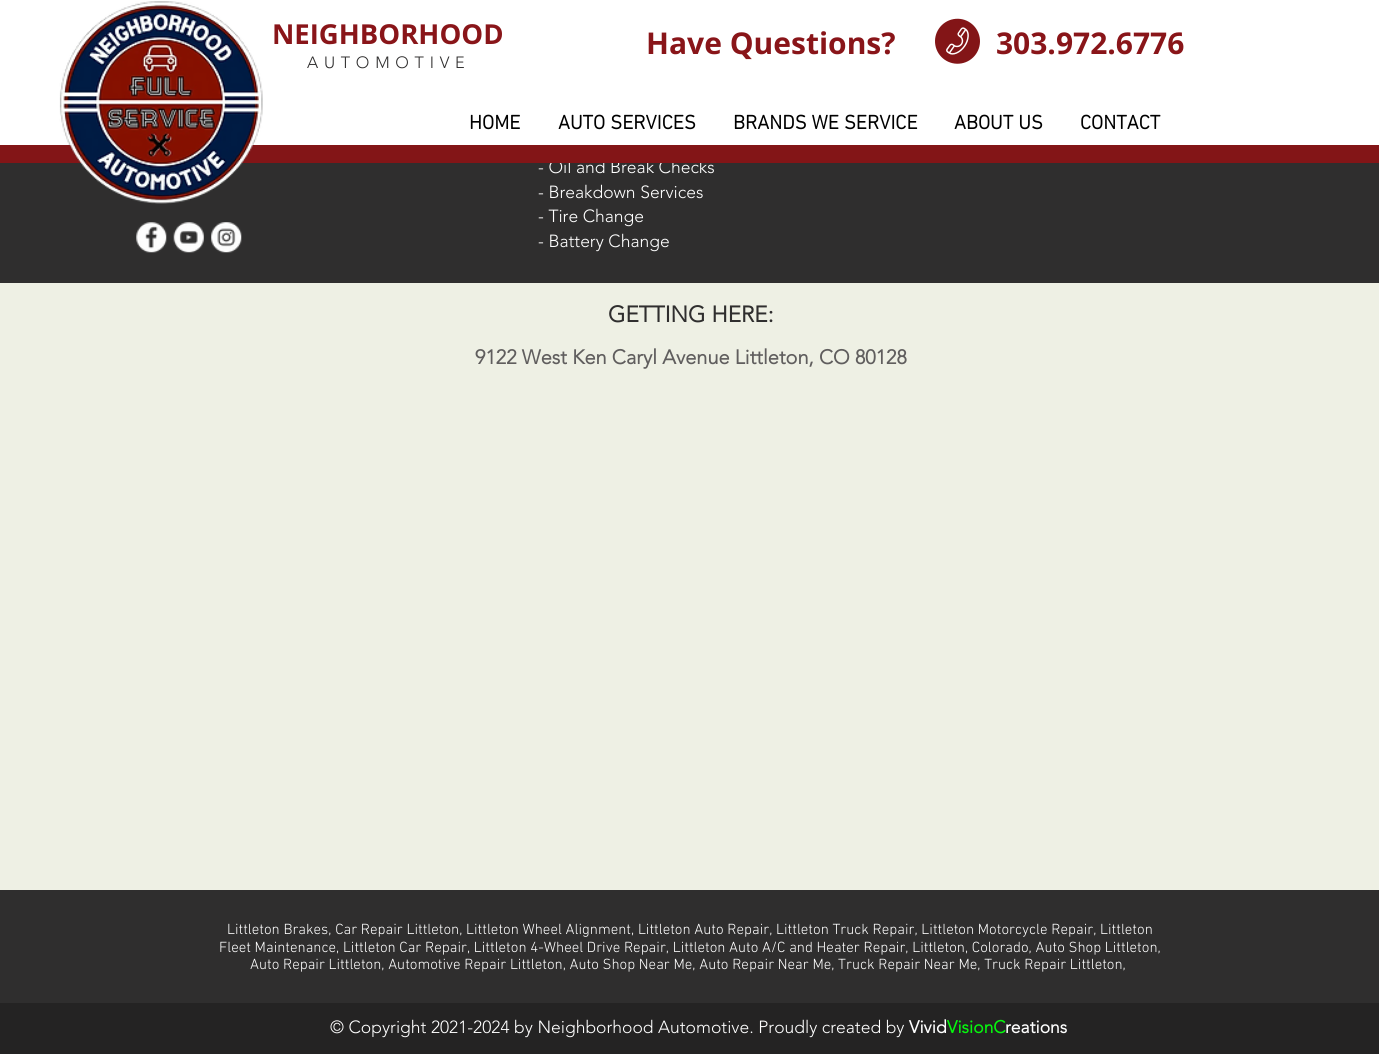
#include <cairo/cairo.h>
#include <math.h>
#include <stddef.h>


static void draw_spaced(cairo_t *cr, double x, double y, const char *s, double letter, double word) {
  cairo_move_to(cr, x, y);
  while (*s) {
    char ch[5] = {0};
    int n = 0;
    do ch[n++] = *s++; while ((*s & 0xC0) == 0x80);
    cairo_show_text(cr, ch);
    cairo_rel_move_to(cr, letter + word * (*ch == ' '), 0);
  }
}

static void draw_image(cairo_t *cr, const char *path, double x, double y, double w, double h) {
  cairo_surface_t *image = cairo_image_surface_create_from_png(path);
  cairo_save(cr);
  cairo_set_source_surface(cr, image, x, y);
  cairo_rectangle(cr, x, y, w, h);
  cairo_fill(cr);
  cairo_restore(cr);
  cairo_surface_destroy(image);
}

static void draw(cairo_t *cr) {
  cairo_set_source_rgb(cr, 47 / 255.0, 46 / 255.0, 46 / 255.0);
  cairo_paint(cr);
  cairo_set_source_rgb(cr, 1, 1, 1);
  cairo_rectangle(cr, 0, 0, 1379, 145);
  cairo_fill(cr);
  draw_image(cr, "images/2.png", 935, 18, 45, 46);
  draw_image(cr, "images/3.png", 136, 222, 31, 31);
  draw_image(cr, "images/4.png", 173, 222, 31, 31);
  draw_image(cr, "images/5.png", 211, 222, 31, 31);
  cairo_set_source_rgb(cr, 238 / 255.0, 240 / 255.0, 228 / 255.0);
  cairo_rectangle(cr, 0, 283, 1379, 607);
  cairo_fill(cr);
  cairo_set_source_rgb(cr, 36 / 255.0, 35 / 255.0, 35 / 255.0);
  cairo_rectangle(cr, 0, 1003, 1379, 51);
  cairo_fill(cr);
  cairo_select_font_face(cr, "Open Sans", CAIRO_FONT_SLANT_NORMAL, CAIRO_FONT_WEIGHT_BOLD);
  cairo_set_font_size(cr, 27.5);
  cairo_set_source_rgb(cr, 137 / 255.0, 21 / 255.0, 25 / 255.0);
  cairo_move_to(cr, 272, 44);
  cairo_show_text(cr, "NEIGHBORHOOD");
  cairo_select_font_face(cr, "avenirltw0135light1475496 Light", CAIRO_FONT_SLANT_NORMAL, CAIRO_FONT_WEIGHT_NORMAL);
  cairo_set_font_size(cr, 16.25);
  cairo_set_source_rgb(cr, 47 / 255.0, 46 / 255.0, 46 / 255.0);
  draw_spaced(cr, 307, 68, "AUTOMOTIVE", 5.75, 0);
  cairo_select_font_face(cr, "Open Sans", CAIRO_FONT_SLANT_NORMAL, CAIRO_FONT_WEIGHT_BOLD);
  cairo_set_font_size(cr, 30);
  cairo_set_source_rgb(cr, 137 / 255.0, 21 / 255.0, 25 / 255.0);
  cairo_move_to(cr, 646, 54);
  cairo_show_text(cr, "Have Questions?");
  cairo_move_to(cr, 996, 54);
  cairo_show_text(cr, "303.972.6776");
  cairo_select_font_face(cr, "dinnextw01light", CAIRO_FONT_SLANT_NORMAL, CAIRO_FONT_WEIGHT_BOLD);
  cairo_set_font_size(cr, 20);
  cairo_set_source_rgb(cr, 0, 0, 0);
  cairo_move_to(cr, 469, 129);
  cairo_show_text(cr, "HOME");
  cairo_move_to(cr, 558, 129);
  cairo_show_text(cr, "AUTO SERVICES");
  cairo_move_to(cr, 733, 129);
  cairo_show_text(cr, "BRANDS WE SERVICE");
  cairo_move_to(cr, 954, 129);
  cairo_show_text(cr, "ABOUT US");
  cairo_move_to(cr, 1080, 129);
  cairo_show_text(cr, "CONTACT");
  cairo_select_font_face(cr, "avenirltw0135light1475496 Light", CAIRO_FONT_SLANT_NORMAL, CAIRO_FONT_WEIGHT_NORMAL);
  cairo_set_font_size(cr, 17.5);
  cairo_set_source_rgb(cr, 1, 1, 1);
  cairo_move_to(cr, 538, 173);
  cairo_show_text(cr, "- Oil and Break Checks");
  cairo_set_source_rgb(cr, 131 / 255.0, 21 / 255.0, 23 / 255.0);
  cairo_rectangle(cr, 0, 145, 1379, 18);
  cairo_fill(cr);
  draw_image(cr, "images/1.png", 59, 1, 204, 203);
  cairo_set_source_rgb(cr, 1, 1, 1);
  cairo_move_to(cr, 538, 198);
  cairo_show_text(cr, "- Breakdown Services");
  cairo_move_to(cr, 538, 222);
  cairo_show_text(cr, "- Tire Change");
  cairo_move_to(cr, 538, 247);
  cairo_show_text(cr, "- Battery Change");
  cairo_select_font_face(cr, "avenirltw0135light1475496", CAIRO_FONT_SLANT_NORMAL, CAIRO_FONT_WEIGHT_BOLD);
  cairo_set_font_size(cr, 22.5);
  cairo_set_source_rgb(cr, 47 / 255.0, 46 / 255.0, 46 / 255.0);
  cairo_move_to(cr, 608, 322);
  cairo_show_text(cr, "GETTING HERE:");
  cairo_set_font_size(cr, 20);
  cairo_set_source_rgb(cr, 96 / 255.0, 94 / 255.0, 94 / 255.0);
  cairo_move_to(cr, 475, 364);
  cairo_show_text(cr, "9122 West Ken Caryl Avenue Littleton, CO 80128");
  cairo_select_font_face(cr, "dinnextw01light Light", CAIRO_FONT_SLANT_NORMAL, CAIRO_FONT_WEIGHT_NORMAL);
  cairo_set_font_size(cr, 15);
  cairo_set_source_rgb(cr, 1, 1, 1);
  cairo_move_to(cr, 227, 934);
  cairo_show_text(cr, "Littleton Brakes, Car Repair Littleton, Littleton Wheel Alignment, Littleton Auto Repair, Littleton Truck Repair, Littleton Motorcycle Repair, Littleton");
  cairo_move_to(cr, 219, 952);
  cairo_show_text(cr, "Fleet Maintenance, Littleton Car Repair, Littleton 4-Wheel Drive Repair, Littleton Auto A/C and Heater Repair, Littleton, Colorado, Auto Shop Littleton,");
  cairo_move_to(cr, 250, 969);
  cairo_show_text(cr, "Auto Repair Littleton, Automotive Repair Littleton, Auto Shop Near Me, Auto Repair Near Me, Truck Repair Near Me, Truck Repair Littleton,");
  cairo_select_font_face(cr, "avenirltw0135light1475496 Light", CAIRO_FONT_SLANT_NORMAL, CAIRO_FONT_WEIGHT_NORMAL);
  cairo_set_font_size(cr, 17.5);
  cairo_move_to(cr, 330, 1033);
  cairo_show_text(cr, "© Copyright 2021-2024 by Neighborhood Automotive. Proudly created by");
  cairo_select_font_face(cr, "avenirltw0135light1475496", CAIRO_FONT_SLANT_NORMAL, CAIRO_FONT_WEIGHT_BOLD);
  cairo_move_to(cr, 909, 1033);
  cairo_show_text(cr, "Vivid");
  cairo_set_source_rgb(cr, 5 / 255.0, 247 / 255.0, 13 / 255.0);
  cairo_move_to(cr, 947, 1033);
  cairo_show_text(cr, "VisionC");
  cairo_set_source_rgb(cr, 1, 1, 1);
  cairo_move_to(cr, 1005, 1033);
  cairo_show_text(cr, "reations");
}

int main(void) {
  cairo_surface_t *surface = cairo_image_surface_create(CAIRO_FORMAT_RGB24, 1379, 1054);
  cairo_t *cr = cairo_create(surface);
  cairo_font_options_t *options = cairo_font_options_create();
  cairo_font_options_set_hint_metrics(options, CAIRO_HINT_METRICS_OFF);
  cairo_font_options_set_hint_style(options, CAIRO_HINT_STYLE_NONE);
  cairo_set_font_options(cr, options);
  cairo_set_miter_limit(cr, 4);
  draw(cr);
  cairo_surface_write_to_png(surface, "out.png");
  cairo_font_options_destroy(options);
  cairo_destroy(cr);
  cairo_surface_destroy(surface);
  return 0;
}
